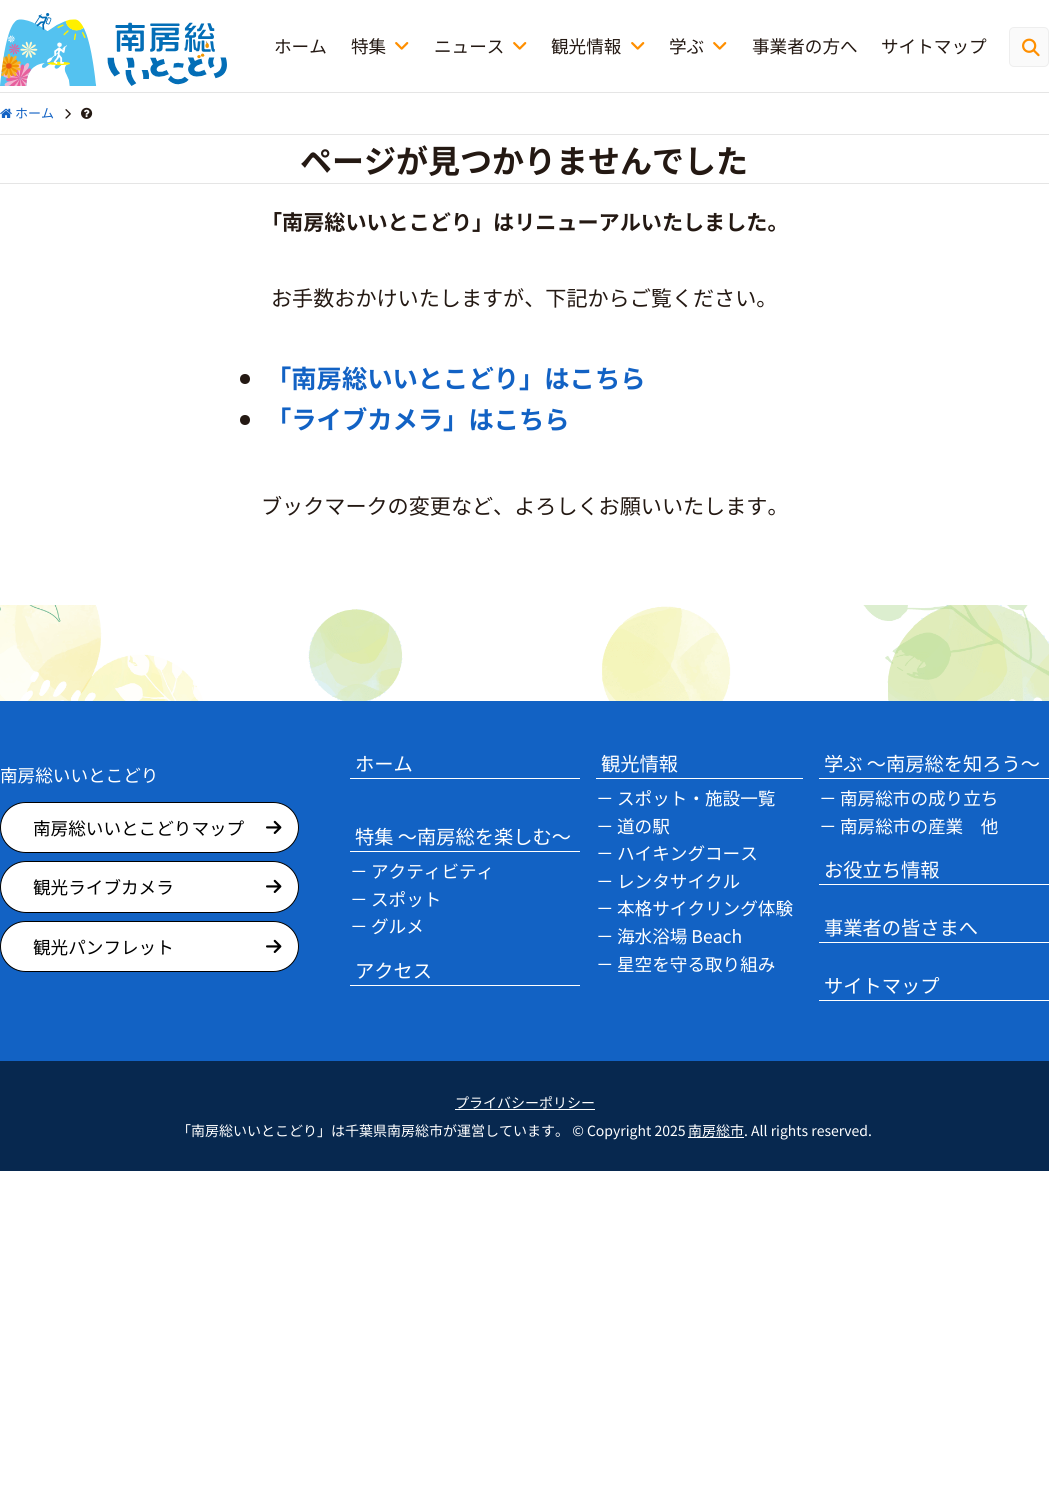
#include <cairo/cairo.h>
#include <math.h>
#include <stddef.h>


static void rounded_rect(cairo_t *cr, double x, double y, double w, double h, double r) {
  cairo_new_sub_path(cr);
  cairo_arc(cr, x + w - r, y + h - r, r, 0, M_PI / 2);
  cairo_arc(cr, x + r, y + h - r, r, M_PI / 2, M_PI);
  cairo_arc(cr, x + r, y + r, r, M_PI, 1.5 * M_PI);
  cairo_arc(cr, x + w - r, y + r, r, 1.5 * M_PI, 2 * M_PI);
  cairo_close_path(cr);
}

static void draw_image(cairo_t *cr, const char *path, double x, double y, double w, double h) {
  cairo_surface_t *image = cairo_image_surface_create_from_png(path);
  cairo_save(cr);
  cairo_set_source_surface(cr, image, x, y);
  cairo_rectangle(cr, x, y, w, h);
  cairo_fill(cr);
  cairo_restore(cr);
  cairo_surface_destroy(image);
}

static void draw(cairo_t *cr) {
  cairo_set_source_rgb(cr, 1, 1, 1);
  cairo_paint(cr);
  draw_image(cr, "images/1.png", 0, 13, 227, 73);
  draw_image(cr, "images/2.png", 395, 42, 14, 8);
  draw_image(cr, "images/2.png", 513, 42, 14, 8);
  draw_image(cr, "images/2.png", 631, 42, 14, 8);
  draw_image(cr, "images/2.png", 713, 42, 14, 8);
  cairo_set_source_rgb(cr, 250 / 255.0, 250 / 255.0, 250 / 255.0);
  rounded_rect(cr, 1009.5, 27.5, 39, 39, 4.5);
  cairo_fill_preserve(cr);
  cairo_set_source_rgb(cr, 238 / 255.0, 238 / 255.0, 238 / 255.0);
  cairo_set_line_width(cr, 1);
  cairo_stroke(cr);
  draw_image(cr, "images/3.png", 1022, 38, 18, 19);
  cairo_set_source_rgb(cr, 229 / 255.0, 229 / 255.0, 229 / 255.0);
  cairo_rectangle(cr, 0, 92, 1049, 1);
  cairo_fill(cr);
  cairo_rectangle(cr, 0, 134, 1049, 1);
  cairo_fill(cr);
  draw_image(cr, "images/4.png", 0, 108, 12, 10);
  draw_image(cr, "images/5.png", 65, 109, 6, 10);
  draw_image(cr, "images/6.png", 81, 107, 12, 12);
  draw_image(cr, "images/7.png", 0, 605, 1049, 96);
  cairo_rectangle(cr, 0, 183, 1049, 1);
  cairo_fill(cr);
  cairo_set_source_rgb(cr, 36 / 255.0, 25 / 255.0, 19 / 255.0);
  cairo_arc(cr, 245, 379, 5, 0, 2 * M_PI);
  cairo_fill(cr);
  cairo_arc(cr, 245, 420, 5, 0, 2 * M_PI);
  cairo_fill(cr);
  cairo_set_source_rgb(cr, 18 / 255.0, 98 / 255.0, 196 / 255.0);
  cairo_rectangle(cr, 0, 701, 1049, 360);
  cairo_fill(cr);
  cairo_set_source_rgb(cr, 1, 1, 1);
  rounded_rect(cr, 0.5, 802.5, 298, 50, 25);
  cairo_fill_preserve(cr);
  cairo_set_source_rgb(cr, 0, 0, 0);
  cairo_stroke(cr);
  draw_image(cr, "images/8.png", 266, 820, 16, 14);
  cairo_set_source_rgb(cr, 1, 1, 1);
  rounded_rect(cr, 0.5, 861.5, 298, 51, 25.5);
  cairo_fill_preserve(cr);
  cairo_set_source_rgb(cr, 0, 0, 0);
  cairo_stroke(cr);
  draw_image(cr, "images/8.png", 266, 879, 16, 14);
  cairo_set_source_rgb(cr, 1, 1, 1);
  rounded_rect(cr, 0.5, 921.5, 298, 50, 25);
  cairo_fill_preserve(cr);
  cairo_set_source_rgb(cr, 0, 0, 0);
  cairo_stroke(cr);
  draw_image(cr, "images/8.png", 266, 939, 16, 14);
  cairo_set_source_rgb(cr, 1, 1, 1);
  cairo_rectangle(cr, 350, 778, 230, 1);
  cairo_fill(cr);
  cairo_rectangle(cr, 596, 778, 207, 1);
  cairo_fill(cr);
  cairo_rectangle(cr, 819, 778, 230, 1);
  cairo_fill(cr);
  cairo_rectangle(cr, 350, 851, 230, 1);
  cairo_fill(cr);
  cairo_rectangle(cr, 819, 884, 230, 1);
  cairo_fill(cr);
  cairo_rectangle(cr, 819, 942, 230, 1);
  cairo_fill(cr);
  cairo_rectangle(cr, 350, 985, 230, 1);
  cairo_fill(cr);
  cairo_rectangle(cr, 819, 1000, 230, 1);
  cairo_fill(cr);
  cairo_set_source_rgb(cr, 7 / 255.0, 40 / 255.0, 79 / 255.0);
  cairo_rectangle(cr, 0, 1061, 1049, 110);
  cairo_fill(cr);
  cairo_set_source_rgb(cr, 1, 1, 1);
  cairo_rectangle(cr, 455, 1109, 140, 1);
  cairo_fill(cr);
  cairo_rectangle(cr, 688, 1137, 56, 1);
  cairo_fill(cr);
  cairo_select_font_face(cr, "Noto Sans JP", CAIRO_FONT_SLANT_NORMAL, CAIRO_FONT_WEIGHT_NORMAL);
  cairo_set_font_size(cr, 17.6);
  cairo_set_source_rgb(cr, 36 / 255.0, 25 / 255.0, 19 / 255.0);
  cairo_move_to(cr, 274, 53);
  cairo_show_text(cr, "ホーム");
  cairo_move_to(cr, 351, 53);
  cairo_show_text(cr, "特集");
  cairo_move_to(cr, 434, 53);
  cairo_show_text(cr, "ニュース");
  cairo_move_to(cr, 551, 53);
  cairo_show_text(cr, "観光情報");
  cairo_move_to(cr, 669, 53);
  cairo_show_text(cr, "学ぶ");
  cairo_move_to(cr, 752, 53);
  cairo_show_text(cr, "事業者の方へ");
  cairo_move_to(cr, 881, 53);
  cairo_show_text(cr, "サイトマップ");
  cairo_set_font_size(cr, 13);
  cairo_set_source_rgb(cr, 18 / 255.0, 98 / 255.0, 196 / 255.0);
  cairo_move_to(cr, 15, 118);
  cairo_show_text(cr, "ホーム");
  cairo_select_font_face(cr, "Noto Sans JP", CAIRO_FONT_SLANT_NORMAL, CAIRO_FONT_WEIGHT_BOLD);
  cairo_set_font_size(cr, 32);
  cairo_set_source_rgb(cr, 36 / 255.0, 25 / 255.0, 19 / 255.0);
  cairo_move_to(cr, 300, 173);
  cairo_show_text(cr, "ページが見つかりませんでした");
  cairo_set_font_size(cr, 21.1);
  cairo_move_to(cr, 261, 230);
  cairo_show_text(cr, "「南房総いいとこどり」はリニューアルいたしました。");
  cairo_select_font_face(cr, "Noto Sans JP", CAIRO_FONT_SLANT_NORMAL, CAIRO_FONT_WEIGHT_NORMAL);
  cairo_move_to(cr, 271, 306);
  cairo_show_text(cr, "お手数おかけいたしますが、下記からご覧ください。");
  cairo_select_font_face(cr, "Noto Sans JP", CAIRO_FONT_SLANT_NORMAL, CAIRO_FONT_WEIGHT_BOLD);
  cairo_set_font_size(cr, 25.3);
  cairo_set_source_rgb(cr, 18 / 255.0, 98 / 255.0, 196 / 255.0);
  cairo_move_to(cr, 266, 388);
  cairo_show_text(cr, "「南房総いいとこどり」はこちら");
  cairo_move_to(cr, 266, 429);
  cairo_show_text(cr, "「ライブカメラ」はこちら");
  cairo_select_font_face(cr, "Noto Sans JP", CAIRO_FONT_SLANT_NORMAL, CAIRO_FONT_WEIGHT_NORMAL);
  cairo_set_font_size(cr, 21.1);
  cairo_set_source_rgb(cr, 36 / 255.0, 25 / 255.0, 19 / 255.0);
  cairo_move_to(cr, 261, 514);
  cairo_show_text(cr, "ブックマークの変更など、よろしくお願いいたします。");
  cairo_set_font_size(cr, 17.6);
  cairo_set_source_rgb(cr, 1, 1, 1);
  cairo_move_to(cr, 0, 782);
  cairo_show_text(cr, "南房総いいとこどり");
  cairo_set_source_rgb(cr, 0, 0, 0);
  cairo_move_to(cr, 33, 835);
  cairo_show_text(cr, "南房総いいとこどりマップ");
  cairo_move_to(cr, 33, 894);
  cairo_show_text(cr, "観光ライブカメラ");
  cairo_move_to(cr, 33, 954);
  cairo_show_text(cr, "観光パンフレット");
  cairo_set_font_size(cr, 19.25);
  cairo_set_source_rgb(cr, 1, 1, 1);
  cairo_move_to(cr, 355, 771);
  cairo_show_text(cr, "ホーム");
  cairo_move_to(cr, 601, 771);
  cairo_show_text(cr, "観光情報");
  cairo_set_font_size(cr, 17.6);
  cairo_move_to(cr, 596, 805);
  cairo_show_text(cr, "－");
  cairo_move_to(cr, 617, 805);
  cairo_show_text(cr, "スポット・施設一覧");
  cairo_move_to(cr, 596, 833);
  cairo_show_text(cr, "－");
  cairo_move_to(cr, 617, 833);
  cairo_show_text(cr, "道の駅");
  cairo_move_to(cr, 596, 860);
  cairo_show_text(cr, "－");
  cairo_move_to(cr, 617, 860);
  cairo_show_text(cr, "ハイキングコース");
  cairo_move_to(cr, 596, 888);
  cairo_show_text(cr, "－");
  cairo_move_to(cr, 617, 888);
  cairo_show_text(cr, "レンタサイクル");
  cairo_move_to(cr, 596, 915);
  cairo_show_text(cr, "－");
  cairo_move_to(cr, 617, 915);
  cairo_show_text(cr, "本格サイクリング体験");
  cairo_move_to(cr, 596, 943);
  cairo_show_text(cr, "－");
  cairo_move_to(cr, 617, 943);
  cairo_show_text(cr, "海水浴場 Beach");
  cairo_move_to(cr, 596, 971);
  cairo_show_text(cr, "－");
  cairo_move_to(cr, 617, 971);
  cairo_show_text(cr, "星空を守る取り組み");
  cairo_set_font_size(cr, 19.25);
  cairo_move_to(cr, 824, 771);
  cairo_show_text(cr, "学ぶ ～南房総を知ろう～");
  cairo_set_font_size(cr, 17.6);
  cairo_move_to(cr, 819, 805);
  cairo_show_text(cr, "－");
  cairo_move_to(cr, 840, 805);
  cairo_show_text(cr, "南房総市の成り立ち");
  cairo_move_to(cr, 819, 833);
  cairo_show_text(cr, "－");
  cairo_move_to(cr, 840, 833);
  cairo_show_text(cr, "南房総市の産業　他");
  cairo_set_font_size(cr, 19.25);
  cairo_move_to(cr, 355, 844);
  cairo_show_text(cr, "特集 ～南房総を楽しむ～");
  cairo_set_font_size(cr, 17.6);
  cairo_move_to(cr, 350, 878);
  cairo_show_text(cr, "－");
  cairo_move_to(cr, 371, 878);
  cairo_show_text(cr, "アクティビティ");
  cairo_move_to(cr, 350, 906);
  cairo_show_text(cr, "－");
  cairo_move_to(cr, 371, 906);
  cairo_show_text(cr, "スポット");
  cairo_move_to(cr, 350, 933);
  cairo_show_text(cr, "－");
  cairo_move_to(cr, 371, 933);
  cairo_show_text(cr, "グルメ");
  cairo_set_font_size(cr, 19.25);
  cairo_move_to(cr, 824, 877);
  cairo_show_text(cr, "お役立ち情報");
  cairo_move_to(cr, 824, 935);
  cairo_show_text(cr, "事業者の皆さまへ");
  cairo_move_to(cr, 355, 978);
  cairo_show_text(cr, "アクセス");
  cairo_move_to(cr, 824, 993);
  cairo_show_text(cr, "サイトマップ");
  cairo_set_font_size(cr, 14);
  cairo_move_to(cr, 455, 1108);
  cairo_show_text(cr, "プライバシーポリシー");
  cairo_move_to(cr, 177, 1136);
  cairo_show_text(cr, "「南房総いいとこどり」は千葉県南房総市が運営しています。 © Copyright 2025");
  cairo_move_to(cr, 688, 1136);
  cairo_show_text(cr, "南房総市. All rights reserved.");
}

int main(void) {
  cairo_surface_t *surface = cairo_image_surface_create(CAIRO_FORMAT_RGB24, 1049, 1510);
  cairo_t *cr = cairo_create(surface);
  cairo_font_options_t *options = cairo_font_options_create();
  cairo_font_options_set_hint_metrics(options, CAIRO_HINT_METRICS_OFF);
  cairo_font_options_set_hint_style(options, CAIRO_HINT_STYLE_NONE);
  cairo_set_font_options(cr, options);
  cairo_set_miter_limit(cr, 4);
  draw(cr);
  cairo_surface_write_to_png(surface, "out.png");
  cairo_font_options_destroy(options);
  cairo_destroy(cr);
  cairo_surface_destroy(surface);
  return 0;
}
